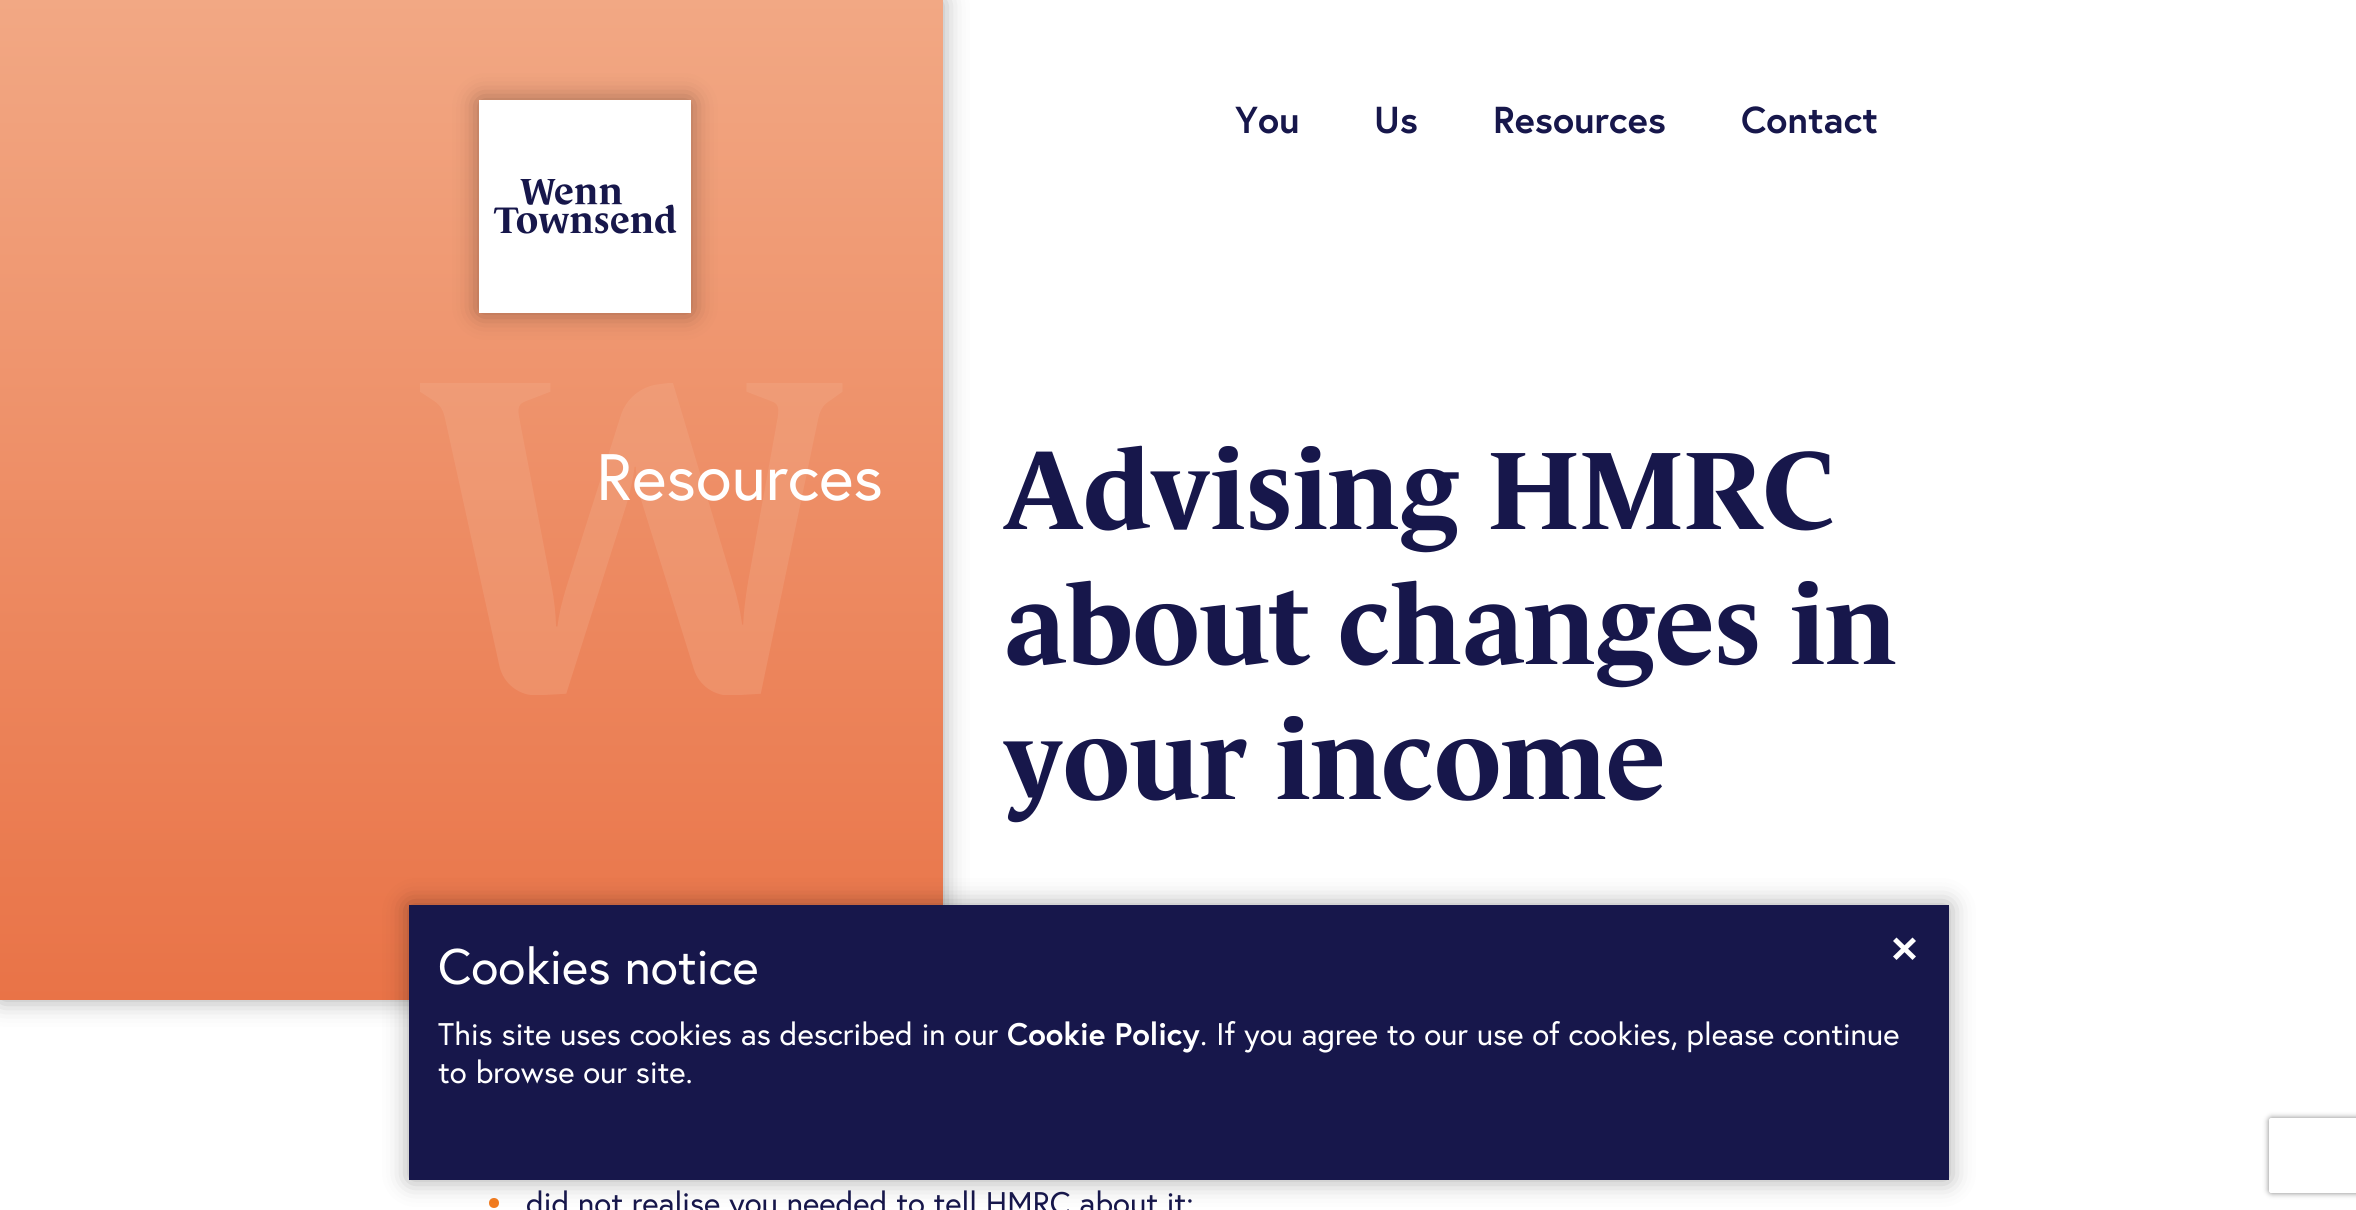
#include <cairo/cairo.h>
#include <math.h>
#include <stddef.h>


static void rounded_rect(cairo_t *cr, double x, double y, double w, double h, double r) {
  cairo_new_sub_path(cr);
  cairo_arc(cr, x + w - r, y + h - r, r, 0, M_PI / 2);
  cairo_arc(cr, x + r, y + h - r, r, M_PI / 2, M_PI);
  cairo_arc(cr, x + r, y + r, r, M_PI, 1.5 * M_PI);
  cairo_arc(cr, x + w - r, y + r, r, 1.5 * M_PI, 2 * M_PI);
  cairo_close_path(cr);
}

static void draw_shadow(cairo_t *cr, double x, double y, double w, double h, double r, double blur, double alpha) {
  cairo_push_group_with_content(cr, CAIRO_CONTENT_ALPHA);
  cairo_set_operator(cr, CAIRO_OPERATOR_SOURCE);
  for (int i = 15; i >= -15 && fmin(w, h) + blur * i / 3 > 0; i -= 2) {
    double e = blur * i / 6;
    cairo_set_source_rgba(cr, 0, 0, 0, alpha * erfc((i - 1) / 8.5) / 2);
    rounded_rect(cr, x - e, y - e, w + 2 * e, h + 2 * e, fmax(0, fmin(r + e + blur * .6, fmin(w, h) / 2 + e)));
    cairo_fill(cr);
  }
  cairo_pattern_t *soft = cairo_pop_group(cr);
  cairo_mask(cr, soft);
  cairo_pattern_destroy(soft);
}

static void draw_image(cairo_t *cr, const char *path, double x, double y, double w, double h) {
  cairo_surface_t *image = cairo_image_surface_create_from_png(path);
  cairo_save(cr);
  cairo_set_source_surface(cr, image, x, y);
  cairo_rectangle(cr, x, y, w, h);
  cairo_fill(cr);
  cairo_restore(cr);
  cairo_surface_destroy(image);
}

static void draw(cairo_t *cr) {
  cairo_pattern_t *gradient;
  cairo_set_source_rgb(cr, 1, 1, 1);
  cairo_paint(cr);
  cairo_set_source_rgb(cr, 0, 0, 0);
  draw_shadow(cr, 0, 0, 943, 1000, 0, 12.5, 0.35);
  gradient = cairo_pattern_create_linear(471, 0, 471, 1000);
  cairo_pattern_add_color_stop_rgba(gradient, 0, 242 / 255.0, 168 / 255.0, 132 / 255.0, 1);
  cairo_pattern_add_color_stop_rgba(gradient, 1, 233 / 255.0, 115 / 255.0, 71 / 255.0, 1);
  cairo_set_source(cr, gradient);
  cairo_pattern_destroy(gradient);
  cairo_rectangle(cr, 0, 0, 943, 1000);
  cairo_fill(cr);
  cairo_set_source_rgb(cr, 0, 0, 0);
  draw_shadow(cr, 479, 100, 212, 213, 0, 12.5, 0.35);
  cairo_set_source_rgb(cr, 1, 1, 1);
  cairo_rectangle(cr, 479, 100, 212, 213);
  cairo_fill(cr);
  draw_image(cr, "images/1.png", 493, 178, 184, 56);
  draw_image(cr, "images/2.png", 420, 383, 423, 312);
  cairo_set_source_rgb(cr, 243 / 255.0, 124 / 255.0, 32 / 255.0);
  cairo_arc(cr, 494, 1203, 5, 0, 2 * M_PI);
  cairo_fill(cr);
  cairo_set_source_rgb(cr, 0, 0, 0);
  draw_shadow(cr, 409, 905, 1540, 275, 0, 12.5, 0.35);
  cairo_set_source_rgb(cr, 23 / 255.0, 23 / 255.0, 75 / 255.0);
  cairo_rectangle(cr, 409, 905, 1540, 275);
  cairo_fill(cr);
  cairo_set_source_rgb(cr, 1, 1, 1);
  cairo_new_path(cr);
  cairo_move_to(cr, 1896.5, 937.5);
  cairo_line_to(cr, 1916, 956.5);
  cairo_line_to(cr, 1912.5, 960);
  cairo_line_to(cr, 1893, 941);
  cairo_close_path(cr);
  cairo_fill(cr);
  cairo_new_path(cr);
  cairo_move_to(cr, 1912.5, 937.5);
  cairo_line_to(cr, 1916, 941);
  cairo_line_to(cr, 1896.5, 960);
  cairo_line_to(cr, 1893, 956.5);
  cairo_close_path(cr);
  cairo_fill(cr);
  cairo_save(cr);
  cairo_set_fill_rule(cr, CAIRO_FILL_RULE_EVEN_ODD);
  cairo_new_path(cr);
  cairo_move_to(cr, 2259, 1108);
  cairo_line_to(cr, 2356, 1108);
  cairo_line_to(cr, 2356, 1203);
  cairo_line_to(cr, 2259, 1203);
  cairo_close_path(cr);
  cairo_move_to(cr, 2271.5, 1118);
  cairo_line_to(cr, 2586.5, 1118);
  cairo_curve_to(cr, 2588, 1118, 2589, 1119, 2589, 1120.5);
  cairo_line_to(cr, 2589, 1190.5);
  cairo_curve_to(cr, 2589, 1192, 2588, 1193, 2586.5, 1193);
  cairo_line_to(cr, 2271.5, 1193);
  cairo_curve_to(cr, 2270, 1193, 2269, 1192, 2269, 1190.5);
  cairo_line_to(cr, 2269, 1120.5);
  cairo_curve_to(cr, 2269, 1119, 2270, 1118, 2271.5, 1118);
  cairo_close_path(cr);
  cairo_clip(cr);
  cairo_set_source_rgb(cr, 128 / 255.0, 128 / 255.0, 128 / 255.0);
  draw_shadow(cr, 2269, 1118, 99, 75, 2.5, 3, 1);
  cairo_restore(cr);
  cairo_select_font_face(cr, "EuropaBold", CAIRO_FONT_SLANT_NORMAL, CAIRO_FONT_WEIGHT_BOLD);
  cairo_set_font_size(cr, 37.5);
  cairo_set_source_rgb(cr, 23 / 255.0, 23 / 255.0, 75 / 255.0);
  cairo_move_to(cr, 1235, 133);
  cairo_show_text(cr, "You");
  cairo_move_to(cr, 1374, 133);
  cairo_show_text(cr, "Us");
  cairo_move_to(cr, 1493, 133);
  cairo_show_text(cr, "Resources");
  cairo_move_to(cr, 1741, 133);
  cairo_show_text(cr, "Contact");
  cairo_select_font_face(cr, "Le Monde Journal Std", CAIRO_FONT_SLANT_NORMAL, CAIRO_FONT_WEIGHT_BOLD);
  cairo_set_font_size(cr, 112.5);
  cairo_move_to(cr, 1003, 529);
  cairo_show_text(cr, "Advising HMRC");
  cairo_move_to(cr, 1003, 664);
  cairo_show_text(cr, "about changes in");
  cairo_move_to(cr, 1003, 799);
  cairo_show_text(cr, "your income");
  cairo_select_font_face(cr, "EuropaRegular", CAIRO_FONT_SLANT_NORMAL, CAIRO_FONT_WEIGHT_NORMAL);
  cairo_set_font_size(cr, 65.5);
  cairo_set_source_rgb(cr, 1, 1, 1);
  cairo_move_to(cr, 596, 500);
  cairo_show_text(cr, "Resources");
  cairo_set_font_size(cr, 31.25);
  cairo_set_source_rgb(cr, 23 / 255.0, 23 / 255.0, 75 / 255.0);
  cairo_move_to(cr, 526, 1214);
  cairo_show_text(cr, "did not realise you needed to tell HMRC about it;");
  cairo_set_font_size(cr, 50);
  cairo_set_source_rgb(cr, 1, 1, 1);
  cairo_move_to(cr, 438, 984);
  cairo_show_text(cr, "Cookies notice");
  cairo_set_font_size(cr, 31.25);
  cairo_move_to(cr, 438, 1045);
  cairo_show_text(cr, "This site uses cookies as described in our");
  cairo_select_font_face(cr, "EuropaBold", CAIRO_FONT_SLANT_NORMAL, CAIRO_FONT_WEIGHT_BOLD);
  cairo_move_to(cr, 1007, 1045);
  cairo_show_text(cr, "Cookie Policy");
  cairo_select_font_face(cr, "EuropaRegular", CAIRO_FONT_SLANT_NORMAL, CAIRO_FONT_WEIGHT_NORMAL);
  cairo_move_to(cr, 1200, 1045);
  cairo_show_text(cr, ". If you agree to our use of cookies, please continue");
  cairo_move_to(cr, 438, 1083);
  cairo_show_text(cr, "to browse our site.");
}

int main(void) {
  cairo_surface_t *surface = cairo_image_surface_create(CAIRO_FORMAT_RGB24, 2356, 1210);
  cairo_t *cr = cairo_create(surface);
  cairo_font_options_t *options = cairo_font_options_create();
  cairo_font_options_set_hint_metrics(options, CAIRO_HINT_METRICS_OFF);
  cairo_font_options_set_hint_style(options, CAIRO_HINT_STYLE_NONE);
  cairo_set_font_options(cr, options);
  cairo_set_miter_limit(cr, 4);
  draw(cr);
  cairo_surface_write_to_png(surface, "out.png");
  cairo_font_options_destroy(options);
  cairo_destroy(cr);
  cairo_surface_destroy(surface);
  return 0;
}
